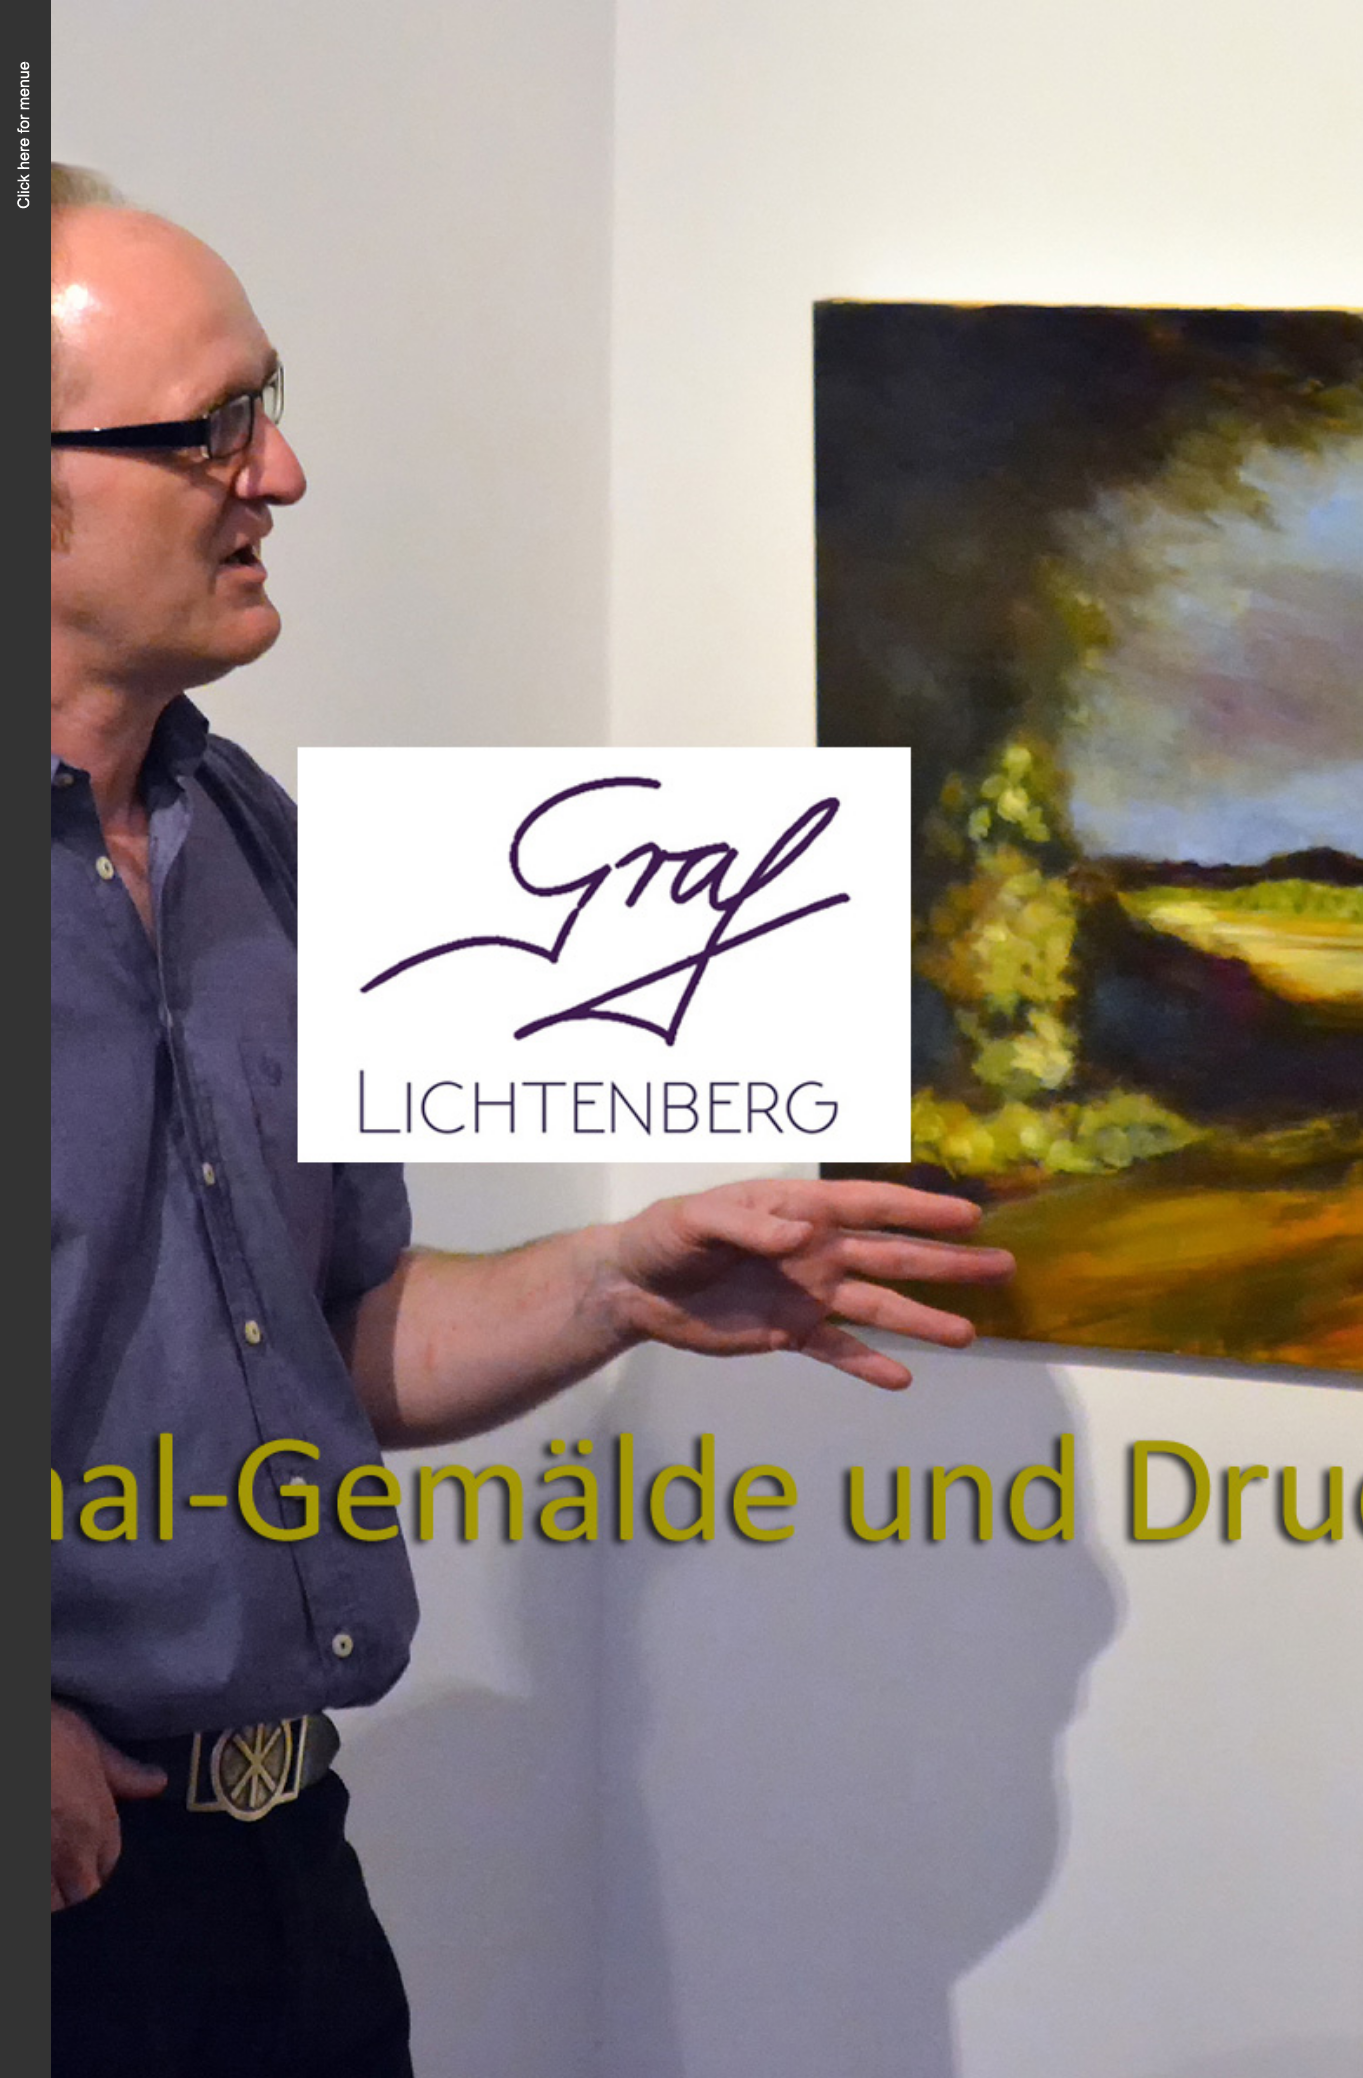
#include <cairo/cairo.h>
#include <math.h>
#include <stddef.h>


static void draw_image(cairo_t *cr, const char *path, double x, double y, double w, double h) {
  cairo_surface_t *image = cairo_image_surface_create_from_png(path);
  cairo_save(cr);
  cairo_set_source_surface(cr, image, x, y);
  cairo_rectangle(cr, x, y, w, h);
  cairo_fill(cr);
  cairo_restore(cr);
  cairo_surface_destroy(image);
}

static void draw(cairo_t *cr) {
  cairo_set_source_rgb(cr, 1, 1, 1);
  cairo_paint(cr);
  cairo_set_source_rgb(cr, 51 / 255.0, 51 / 255.0, 51 / 255.0);
  cairo_rectangle(cr, 0, 0, 51, 2078);
  cairo_fill(cr);
  draw_image(cr, "images/1.png", 17, 61, 13, 148);
  draw_image(cr, "images/2.png", 51, 0, 1312, 2078);
}

int main(void) {
  cairo_surface_t *surface = cairo_image_surface_create(CAIRO_FORMAT_RGB24, 1363, 2078);
  cairo_t *cr = cairo_create(surface);
  cairo_font_options_t *options = cairo_font_options_create();
  cairo_font_options_set_hint_metrics(options, CAIRO_HINT_METRICS_OFF);
  cairo_font_options_set_hint_style(options, CAIRO_HINT_STYLE_NONE);
  cairo_set_font_options(cr, options);
  cairo_set_miter_limit(cr, 4);
  draw(cr);
  cairo_surface_write_to_png(surface, "out.png");
  cairo_font_options_destroy(options);
  cairo_destroy(cr);
  cairo_surface_destroy(surface);
  return 0;
}
